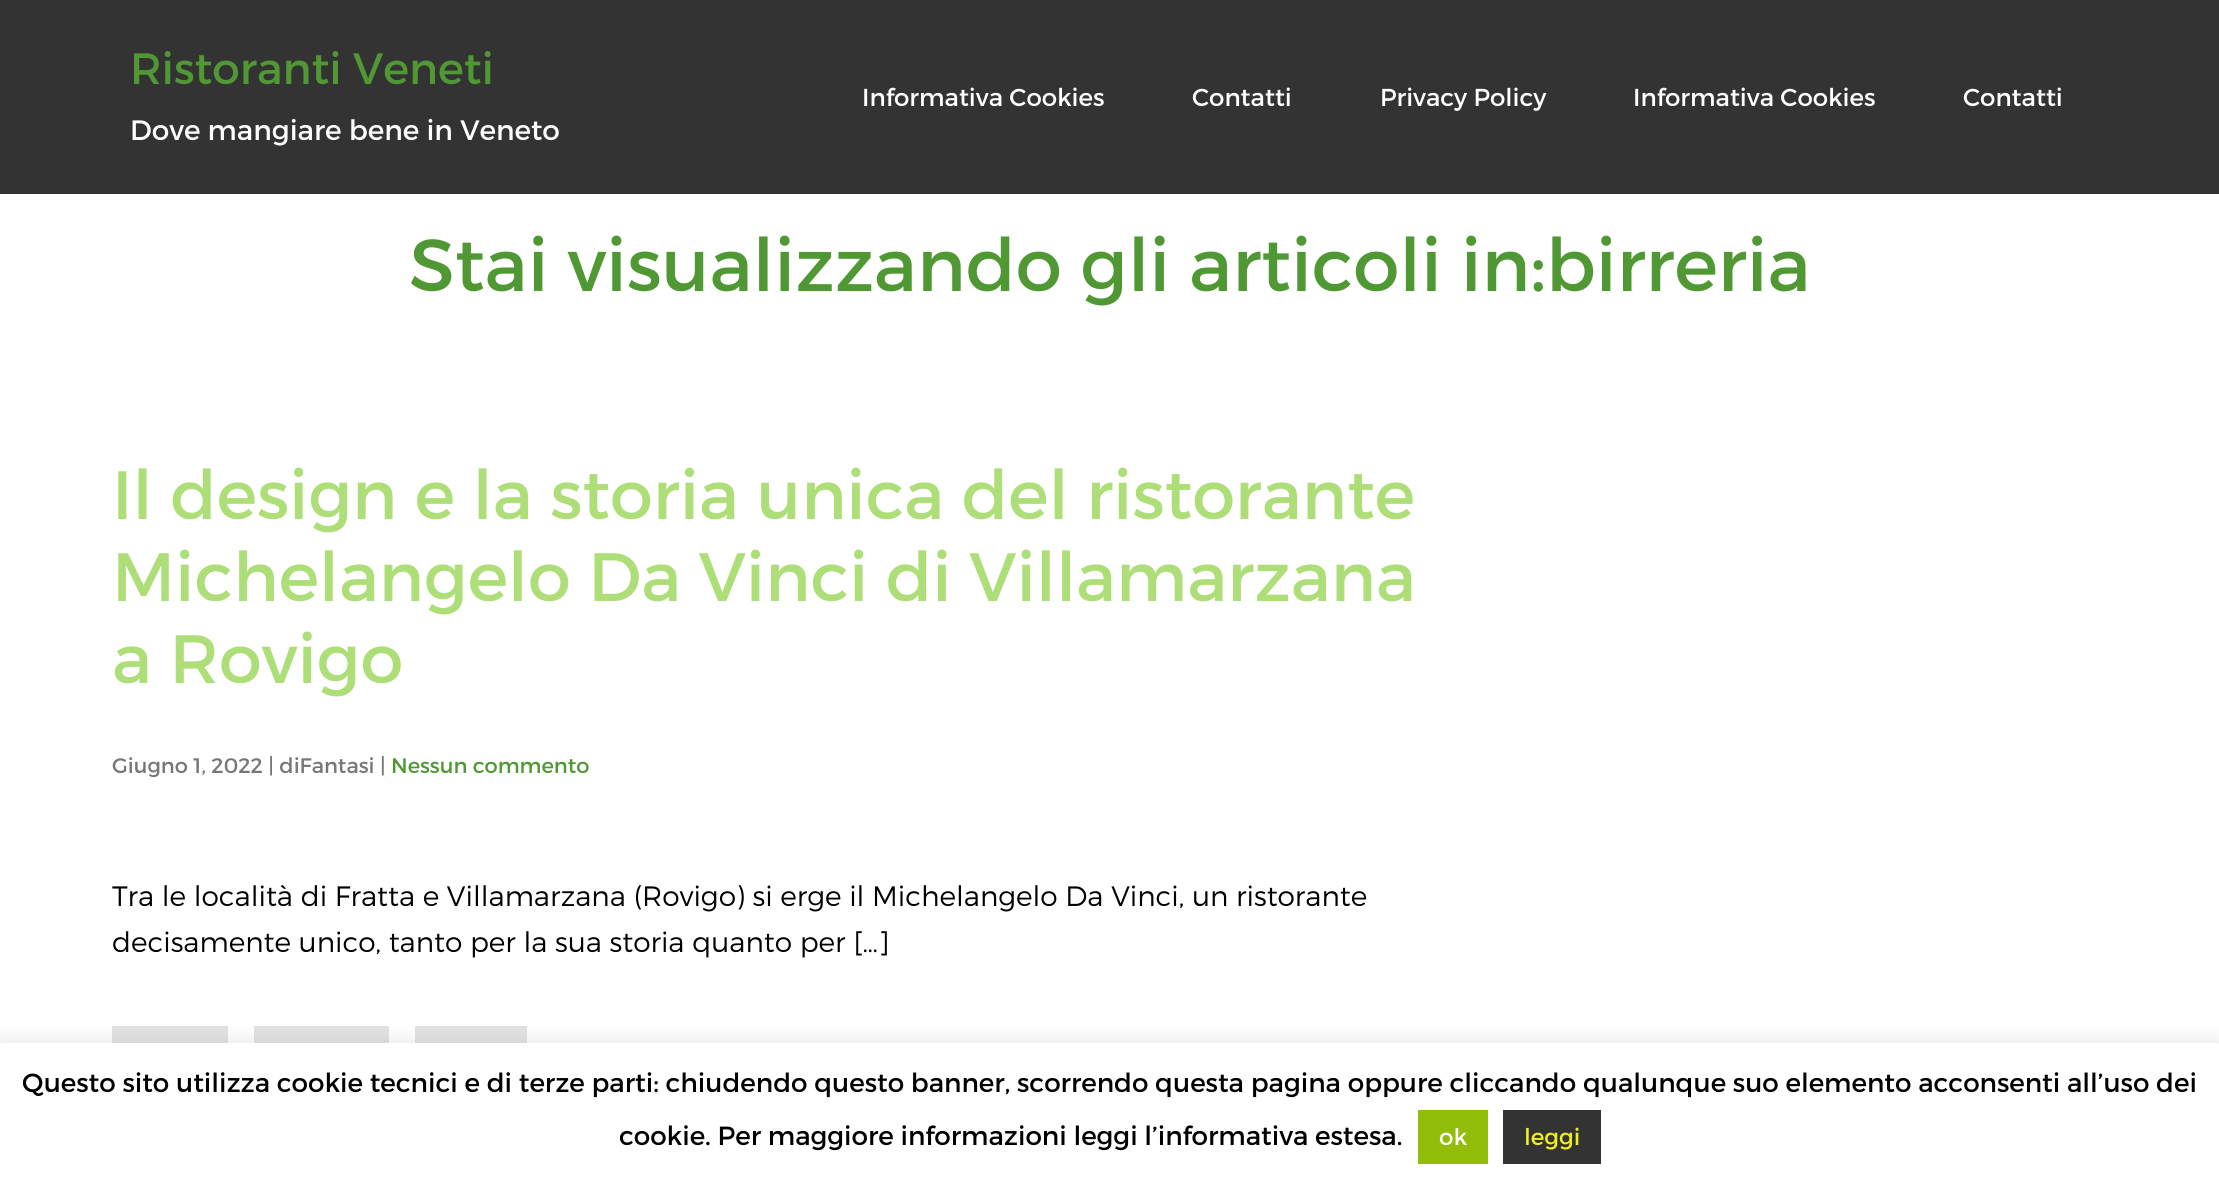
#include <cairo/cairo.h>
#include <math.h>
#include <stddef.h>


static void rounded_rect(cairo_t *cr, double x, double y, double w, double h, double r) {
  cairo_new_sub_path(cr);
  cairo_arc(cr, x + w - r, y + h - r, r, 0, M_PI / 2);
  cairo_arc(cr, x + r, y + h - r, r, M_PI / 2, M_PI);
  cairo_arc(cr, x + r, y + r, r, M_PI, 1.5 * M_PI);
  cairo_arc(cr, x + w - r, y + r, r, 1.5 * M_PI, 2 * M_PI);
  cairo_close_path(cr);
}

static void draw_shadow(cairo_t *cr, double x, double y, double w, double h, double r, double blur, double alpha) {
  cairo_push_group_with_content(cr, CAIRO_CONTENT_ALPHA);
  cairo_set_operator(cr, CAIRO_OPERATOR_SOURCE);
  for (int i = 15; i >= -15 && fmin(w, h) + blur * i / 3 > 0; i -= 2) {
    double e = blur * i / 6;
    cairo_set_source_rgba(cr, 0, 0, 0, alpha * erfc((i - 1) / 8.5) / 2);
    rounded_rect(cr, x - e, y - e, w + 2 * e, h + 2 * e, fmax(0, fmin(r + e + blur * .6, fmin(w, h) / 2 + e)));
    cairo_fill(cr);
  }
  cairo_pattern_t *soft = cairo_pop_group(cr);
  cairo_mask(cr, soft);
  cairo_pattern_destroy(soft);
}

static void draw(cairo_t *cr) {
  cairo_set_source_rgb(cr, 1, 1, 1);
  cairo_paint(cr);
  cairo_set_source_rgb(cr, 51 / 255.0, 51 / 255.0, 51 / 255.0);
  cairo_rectangle(cr, 0, 0, 2219, 194);
  cairo_fill(cr);
  cairo_set_source_rgb(cr, 225 / 255.0, 225 / 255.0, 225 / 255.0);
  cairo_rectangle(cr, 112, 1026, 116, 17);
  cairo_fill(cr);
  cairo_rectangle(cr, 254, 1026, 135, 17);
  cairo_fill(cr);
  cairo_rectangle(cr, 415, 1026, 112, 17);
  cairo_fill(cr);
  cairo_set_source_rgb(cr, 172 / 255.0, 171 / 255.0, 171 / 255.0);
  draw_shadow(cr, 0, 1041, 2219, 142, 0, 9, 0.3);
  cairo_set_source_rgb(cr, 1, 1, 1);
  cairo_rectangle(cr, 0, 1043, 2219, 141);
  cairo_fill(cr);
  cairo_set_source_rgb(cr, 145 / 255.0, 189 / 255.0, 9 / 255.0);
  cairo_rectangle(cr, 1418, 1110, 70, 54);
  cairo_fill(cr);
  cairo_set_source_rgb(cr, 51 / 255.0, 51 / 255.0, 51 / 255.0);
  cairo_rectangle(cr, 1503, 1110, 98, 54);
  cairo_fill(cr);
  cairo_select_font_face(cr, "Montserrat", CAIRO_FONT_SLANT_NORMAL, CAIRO_FONT_WEIGHT_NORMAL);
  cairo_set_font_size(cr, 43.75);
  cairo_set_source_rgb(cr, 80 / 255.0, 152 / 255.0, 52 / 255.0);
  cairo_move_to(cr, 130, 84);
  cairo_show_text(cr, "Ristoranti Veneti");
  cairo_set_font_size(cr, 28);
  cairo_set_source_rgb(cr, 1, 1, 1);
  cairo_move_to(cr, 130, 140);
  cairo_show_text(cr, "Dove mangiare bene in Veneto");
  cairo_set_font_size(cr, 24.5);
  cairo_move_to(cr, 862, 106);
  cairo_show_text(cr, "Informativa Cookies");
  cairo_move_to(cr, 1192, 106);
  cairo_show_text(cr, "Contatti");
  cairo_move_to(cr, 1380, 106);
  cairo_show_text(cr, "Privacy Policy");
  cairo_move_to(cr, 1633, 106);
  cairo_show_text(cr, "Informativa Cookies");
  cairo_move_to(cr, 1963, 106);
  cairo_show_text(cr, "Contatti");
  cairo_set_font_size(cr, 73.5);
  cairo_set_source_rgb(cr, 80 / 255.0, 152 / 255.0, 52 / 255.0);
  cairo_move_to(cr, 409, 291);
  cairo_show_text(cr, "Stai visualizzando gli articoli in:birreria");
  cairo_set_font_size(cr, 68.25);
  cairo_set_source_rgb(cr, 173 / 255.0, 222 / 255.0, 120 / 255.0);
  cairo_move_to(cr, 112, 519);
  cairo_show_text(cr, "Il design e la storia unica del ristorante");
  cairo_move_to(cr, 112, 601);
  cairo_show_text(cr, "Michelangelo Da Vinci di Villamarzana");
  cairo_move_to(cr, 112, 683);
  cairo_show_text(cr, "a Rovigo");
  cairo_set_font_size(cr, 21);
  cairo_set_source_rgb(cr, 119 / 255.0, 119 / 255.0, 119 / 255.0);
  cairo_move_to(cr, 112, 773);
  cairo_show_text(cr, "Giugno 1, 2022 | diFantasi |");
  cairo_set_source_rgb(cr, 80 / 255.0, 152 / 255.0, 52 / 255.0);
  cairo_move_to(cr, 391, 773);
  cairo_show_text(cr, "Nessun commento");
  cairo_select_font_face(cr, "Montserrat Light", CAIRO_FONT_SLANT_NORMAL, CAIRO_FONT_WEIGHT_NORMAL);
  cairo_set_font_size(cr, 28);
  cairo_set_source_rgb(cr, 0, 0, 0);
  cairo_move_to(cr, 112, 906);
  cairo_show_text(cr, "Tra le località di Fratta e Villamarzana (Rovigo) si erge il Michelangelo Da Vinci, un ristorante");
  cairo_move_to(cr, 112, 952);
  cairo_show_text(cr, "decisamente unico, tanto per la sua storia quanto per […]");
  cairo_select_font_face(cr, "Montserrat", CAIRO_FONT_SLANT_NORMAL, CAIRO_FONT_WEIGHT_NORMAL);
  cairo_set_font_size(cr, 26.25);
  cairo_move_to(cr, 22, 1092);
  cairo_show_text(cr, "Questo sito utilizza cookie tecnici e di terze parti: chiudendo questo banner, scorrendo questa pagina oppure cliccando qualunque suo elemento acconsenti all’uso dei");
  cairo_move_to(cr, 619, 1145);
  cairo_show_text(cr, "cookie. Per maggiore informazioni leggi l’informativa estesa.");
  cairo_set_font_size(cr, 23);
  cairo_set_source_rgb(cr, 1, 1, 1);
  cairo_move_to(cr, 1439, 1145);
  cairo_show_text(cr, "ok");
  cairo_set_source_rgb(cr, 238 / 255.0, 238 / 255.0, 34 / 255.0);
  cairo_move_to(cr, 1524, 1145);
  cairo_show_text(cr, "leggi");
}

int main(void) {
  cairo_surface_t *surface = cairo_image_surface_create(CAIRO_FORMAT_RGB24, 2219, 1184);
  cairo_t *cr = cairo_create(surface);
  cairo_font_options_t *options = cairo_font_options_create();
  cairo_font_options_set_hint_metrics(options, CAIRO_HINT_METRICS_OFF);
  cairo_font_options_set_hint_style(options, CAIRO_HINT_STYLE_NONE);
  cairo_set_font_options(cr, options);
  cairo_set_miter_limit(cr, 4);
  draw(cr);
  cairo_surface_write_to_png(surface, "out.png");
  cairo_font_options_destroy(options);
  cairo_destroy(cr);
  cairo_surface_destroy(surface);
  return 0;
}
